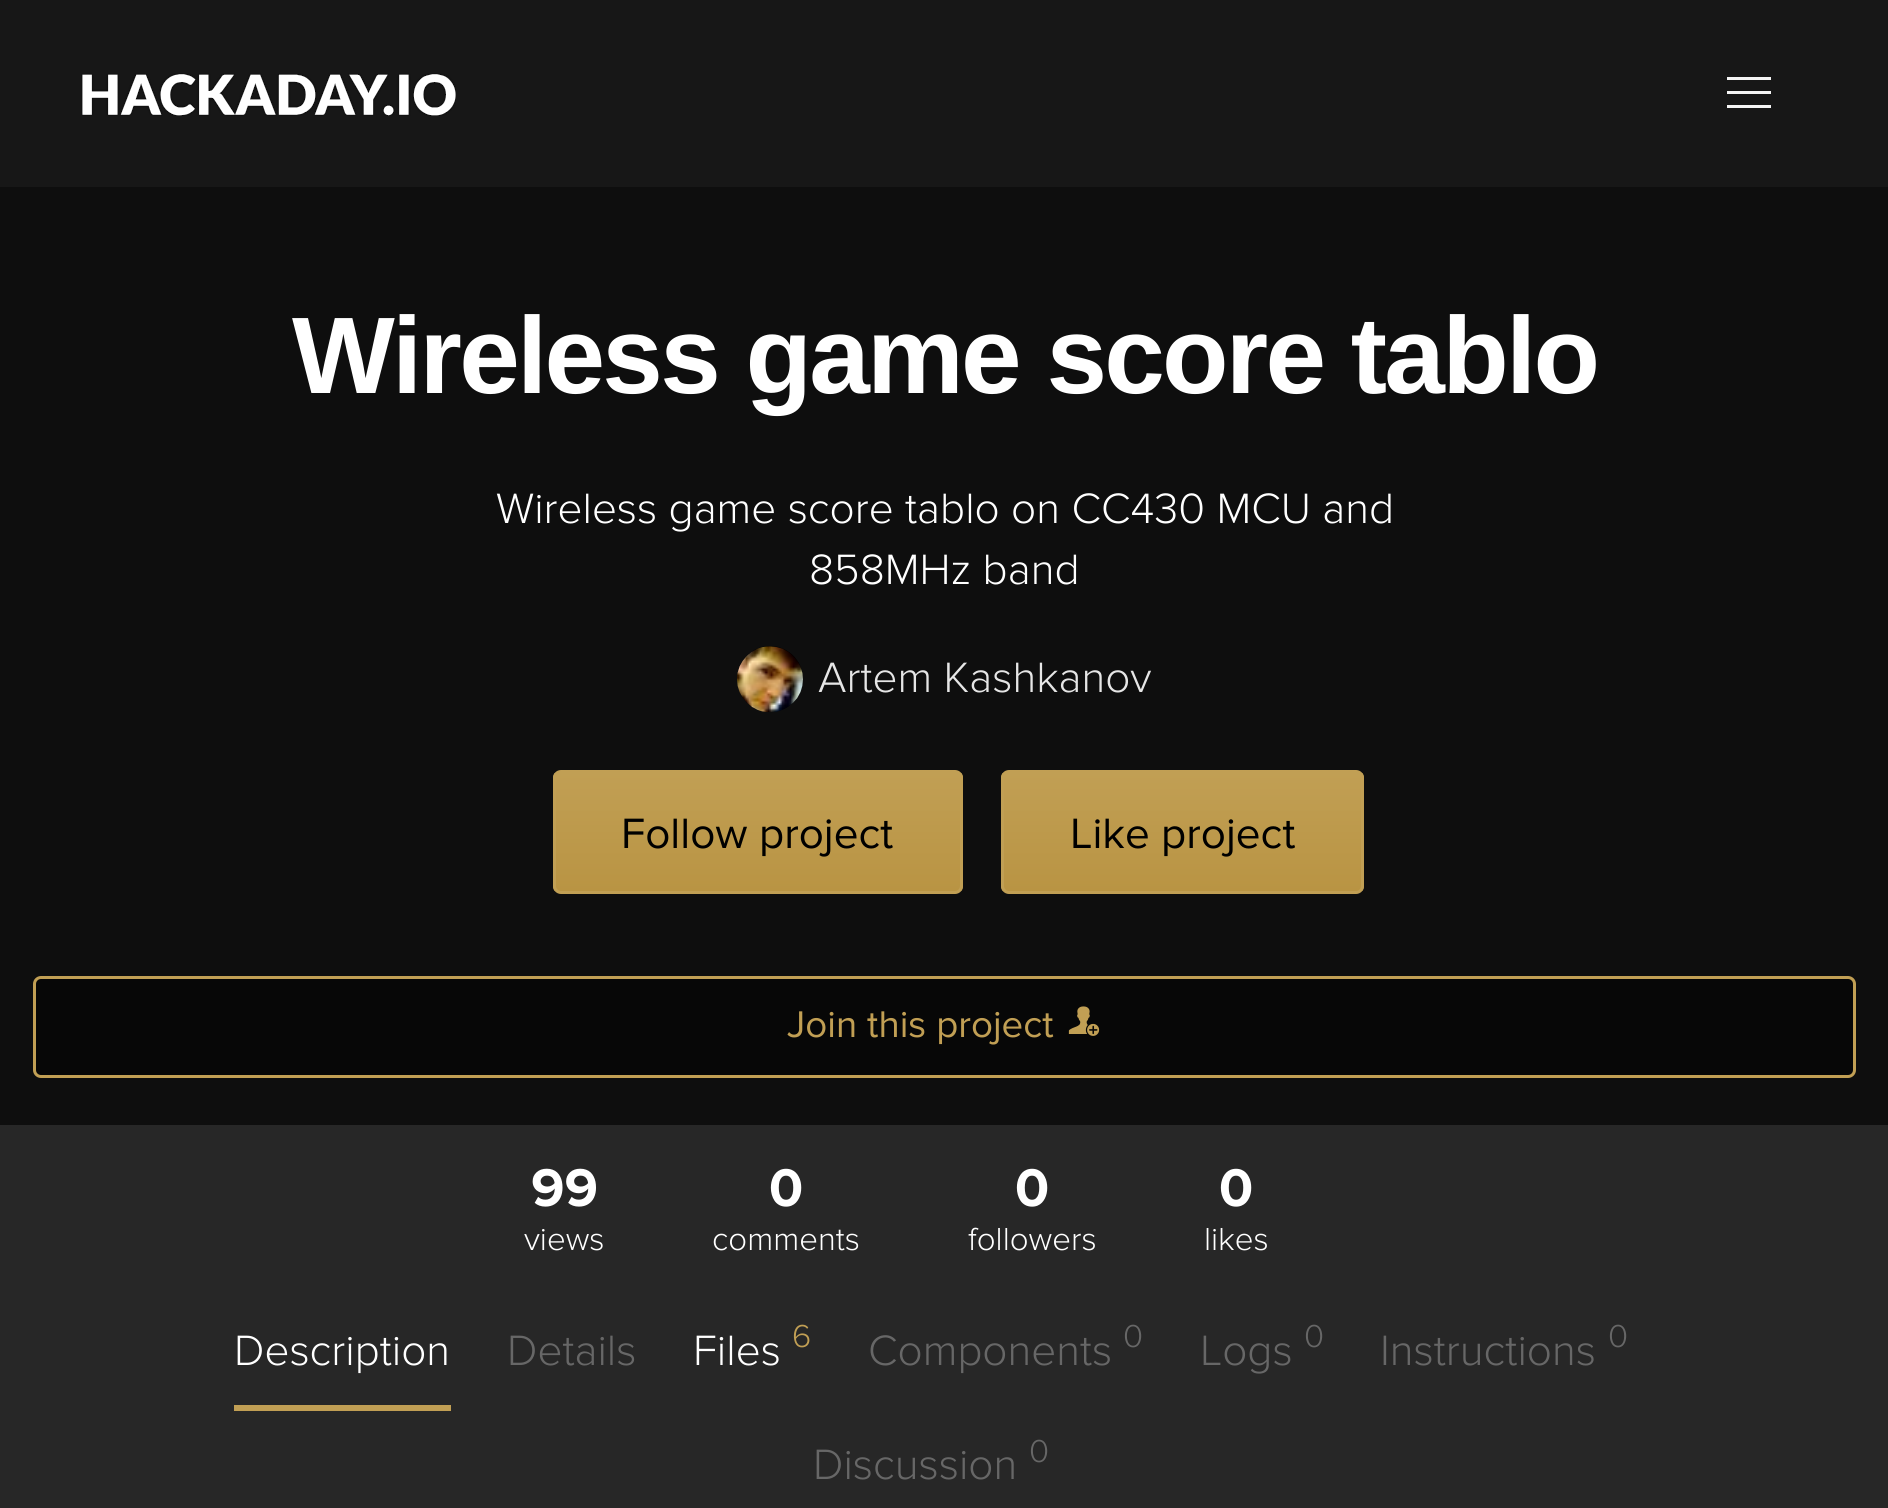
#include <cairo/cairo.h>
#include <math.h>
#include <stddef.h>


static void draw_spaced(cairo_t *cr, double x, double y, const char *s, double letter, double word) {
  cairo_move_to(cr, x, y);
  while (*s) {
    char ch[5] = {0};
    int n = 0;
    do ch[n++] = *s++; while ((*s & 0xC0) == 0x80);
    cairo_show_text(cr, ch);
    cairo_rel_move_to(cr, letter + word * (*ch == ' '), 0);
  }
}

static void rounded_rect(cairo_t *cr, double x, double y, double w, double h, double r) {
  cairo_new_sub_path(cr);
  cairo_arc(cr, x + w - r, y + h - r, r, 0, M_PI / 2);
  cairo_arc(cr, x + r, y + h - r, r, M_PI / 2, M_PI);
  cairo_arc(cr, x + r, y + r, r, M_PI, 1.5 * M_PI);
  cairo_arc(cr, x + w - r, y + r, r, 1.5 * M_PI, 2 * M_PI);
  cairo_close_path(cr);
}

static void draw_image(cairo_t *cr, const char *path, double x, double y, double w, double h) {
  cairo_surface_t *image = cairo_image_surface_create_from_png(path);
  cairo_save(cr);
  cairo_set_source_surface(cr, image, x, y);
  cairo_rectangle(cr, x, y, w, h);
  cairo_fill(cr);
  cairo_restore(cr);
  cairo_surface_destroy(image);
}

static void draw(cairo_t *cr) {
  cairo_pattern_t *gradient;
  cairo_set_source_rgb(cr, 23 / 255.0, 23 / 255.0, 23 / 255.0);
  cairo_paint(cr);
  draw_image(cr, "images/1.png", 81, 73, 375, 43);
  cairo_set_source_rgb(cr, 245 / 255.0, 245 / 255.0, 245 / 255.0);
  cairo_rectangle(cr, 1727, 77, 44, 3);
  cairo_fill(cr);
  cairo_rectangle(cr, 1727, 91, 44, 3);
  cairo_fill(cr);
  cairo_rectangle(cr, 1727, 105, 44, 3);
  cairo_fill(cr);
  cairo_set_source_rgb(cr, 14 / 255.0, 14 / 255.0, 14 / 255.0);
  cairo_rectangle(cr, 0, 187, 1888, 938);
  cairo_fill(cr);
  cairo_set_source_rgb(cr, 0, 0, 0);
  cairo_arc(cr, 770, 679, 33, 0, 2 * M_PI);
  cairo_fill(cr);
  draw_image(cr, "images/2.png", 737, 646, 66, 66);
  cairo_save(cr);
  rounded_rect(cr, 553, 770, 410, 124, 8);
  cairo_clip(cr);
  gradient = cairo_pattern_create_linear(758, 773, 758, 891);
  cairo_pattern_add_color_stop_rgba(gradient, 0, 193 / 255.0, 159 / 255.0, 84 / 255.0, 1);
  cairo_pattern_add_color_stop_rgba(gradient, 1, 185 / 255.0, 148 / 255.0, 67 / 255.0, 1);
  cairo_set_source(cr, gradient);
  cairo_pattern_destroy(gradient);
  cairo_rectangle(cr, 553, 773, 410, 118);
  cairo_fill(cr);
  cairo_restore(cr);
  rounded_rect(cr, 554.5, 771.5, 407, 121, 6.5);
  cairo_set_source_rgb(cr, 193 / 255.0, 159 / 255.0, 84 / 255.0);
  cairo_set_line_width(cr, 3);
  cairo_stroke(cr);
  cairo_save(cr);
  rounded_rect(cr, 1001, 770, 363, 124, 8);
  cairo_clip(cr);
  gradient = cairo_pattern_create_linear(1183, 773, 1183, 891);
  cairo_pattern_add_color_stop_rgba(gradient, 0, 193 / 255.0, 159 / 255.0, 84 / 255.0, 1);
  cairo_pattern_add_color_stop_rgba(gradient, 1, 185 / 255.0, 148 / 255.0, 67 / 255.0, 1);
  cairo_set_source(cr, gradient);
  cairo_pattern_destroy(gradient);
  cairo_rectangle(cr, 1001, 773, 363, 118);
  cairo_fill(cr);
  cairo_restore(cr);
  rounded_rect(cr, 1002.5, 771.5, 360, 121, 6.5);
  cairo_stroke(cr);
  cairo_set_source_rgb(cr, 7 / 255.0, 7 / 255.0, 7 / 255.0);
  rounded_rect(cr, 34.5, 977.5, 1820, 99, 6.5);
  cairo_fill_preserve(cr);
  cairo_set_source_rgb(cr, 193 / 255.0, 159 / 255.0, 84 / 255.0);
  cairo_stroke(cr);
  draw_image(cr, "images/3.png", 1068, 1006, 32, 30);
  cairo_set_source_rgb(cr, 39 / 255.0, 39 / 255.0, 39 / 255.0);
  cairo_rectangle(cr, 0, 1125, 1888, 383);
  cairo_fill(cr);
  cairo_set_source_rgb(cr, 193 / 255.0, 159 / 255.0, 84 / 255.0);
  cairo_rectangle(cr, 234, 1405, 217, 6);
  cairo_fill(cr);
  cairo_select_font_face(cr, "Liberation Sans", CAIRO_FONT_SLANT_NORMAL, CAIRO_FONT_WEIGHT_BOLD);
  cairo_set_font_size(cr, 108.9);
  cairo_set_source_rgb(cr, 1, 1, 1);
  draw_spaced(cr, 292, 393, "Wireless game score tablo", -2.75, 0);
  cairo_select_font_face(cr, "Proxima Nova Light", CAIRO_FONT_SLANT_NORMAL, CAIRO_FONT_WEIGHT_NORMAL);
  cairo_set_font_size(cr, 44);
  cairo_move_to(cr, 496, 523);
  cairo_show_text(cr, "Wireless game score tablo on CC430 MCU and");
  cairo_move_to(cr, 809, 584);
  cairo_show_text(cr, "858MHz band");
  cairo_set_source_rgb(cr, 230 / 255.0, 230 / 255.0, 230 / 255.0);
  cairo_move_to(cr, 818, 692);
  cairo_show_text(cr, "Artem Kashkanov");
  cairo_select_font_face(cr, "Proxima Nova", CAIRO_FONT_SLANT_NORMAL, CAIRO_FONT_WEIGHT_NORMAL);
  cairo_set_source_rgb(cr, 0, 0, 0);
  cairo_move_to(cr, 621, 848);
  cairo_show_text(cr, "Follow project");
  cairo_move_to(cr, 1070, 848);
  cairo_show_text(cr, "Like project");
  cairo_set_font_size(cr, 38.5);
  cairo_set_source_rgb(cr, 193 / 255.0, 159 / 255.0, 84 / 255.0);
  cairo_move_to(cr, 787, 1037);
  cairo_show_text(cr, "Join this project");
  cairo_select_font_face(cr, "Proxima Nova", CAIRO_FONT_SLANT_NORMAL, CAIRO_FONT_WEIGHT_BOLD);
  cairo_set_font_size(cr, 55);
  cairo_set_source_rgb(cr, 1, 1, 1);
  cairo_move_to(cr, 531, 1206);
  cairo_show_text(cr, "99");
  cairo_select_font_face(cr, "Proxima Nova Light", CAIRO_FONT_SLANT_NORMAL, CAIRO_FONT_WEIGHT_NORMAL);
  cairo_set_font_size(cr, 33);
  cairo_move_to(cr, 524, 1250);
  cairo_show_text(cr, "views");
  cairo_select_font_face(cr, "Proxima Nova", CAIRO_FONT_SLANT_NORMAL, CAIRO_FONT_WEIGHT_BOLD);
  cairo_set_font_size(cr, 55);
  cairo_move_to(cr, 769, 1206);
  cairo_show_text(cr, "0");
  cairo_select_font_face(cr, "Proxima Nova Light", CAIRO_FONT_SLANT_NORMAL, CAIRO_FONT_WEIGHT_NORMAL);
  cairo_set_font_size(cr, 33);
  cairo_move_to(cr, 712, 1250);
  cairo_show_text(cr, "comments");
  cairo_select_font_face(cr, "Proxima Nova", CAIRO_FONT_SLANT_NORMAL, CAIRO_FONT_WEIGHT_BOLD);
  cairo_set_font_size(cr, 55);
  cairo_move_to(cr, 1015, 1206);
  cairo_show_text(cr, "0");
  cairo_select_font_face(cr, "Proxima Nova Light", CAIRO_FONT_SLANT_NORMAL, CAIRO_FONT_WEIGHT_NORMAL);
  cairo_set_font_size(cr, 33);
  cairo_move_to(cr, 968, 1250);
  cairo_show_text(cr, "followers");
  cairo_select_font_face(cr, "Proxima Nova", CAIRO_FONT_SLANT_NORMAL, CAIRO_FONT_WEIGHT_BOLD);
  cairo_set_font_size(cr, 55);
  cairo_move_to(cr, 1219, 1206);
  cairo_show_text(cr, "0");
  cairo_select_font_face(cr, "Proxima Nova Light", CAIRO_FONT_SLANT_NORMAL, CAIRO_FONT_WEIGHT_NORMAL);
  cairo_set_font_size(cr, 33);
  cairo_move_to(cr, 1204, 1250);
  cairo_show_text(cr, "likes");
  cairo_set_font_size(cr, 44);
  cairo_move_to(cr, 234, 1365);
  cairo_show_text(cr, "Description");
  cairo_set_source_rgb(cr, 103 / 255.0, 103 / 255.0, 103 / 255.0);
  cairo_move_to(cr, 507, 1365);
  cairo_show_text(cr, "Details");
  cairo_set_source_rgb(cr, 1, 1, 1);
  cairo_move_to(cr, 693, 1365);
  cairo_show_text(cr, "Files");
  cairo_set_font_size(cr, 33);
  cairo_set_source_rgb(cr, 193 / 255.0, 159 / 255.0, 84 / 255.0);
  cairo_move_to(cr, 792, 1347);
  cairo_show_text(cr, "6");
  cairo_set_font_size(cr, 44);
  cairo_set_source_rgb(cr, 103 / 255.0, 103 / 255.0, 103 / 255.0);
  cairo_move_to(cr, 868, 1365);
  cairo_show_text(cr, "Components");
  cairo_set_font_size(cr, 33);
  cairo_move_to(cr, 1123, 1347);
  cairo_show_text(cr, "0");
  cairo_set_font_size(cr, 44);
  cairo_move_to(cr, 1200, 1365);
  cairo_show_text(cr, "Logs");
  cairo_set_font_size(cr, 33);
  cairo_move_to(cr, 1304, 1347);
  cairo_show_text(cr, "0");
  cairo_set_font_size(cr, 44);
  cairo_move_to(cr, 1380, 1365);
  cairo_show_text(cr, "Instructions");
  cairo_set_font_size(cr, 33);
  cairo_move_to(cr, 1608, 1347);
  cairo_show_text(cr, "0");
  cairo_set_font_size(cr, 44);
  cairo_move_to(cr, 813, 1479);
  cairo_show_text(cr, "Discussion");
  cairo_set_font_size(cr, 33);
  cairo_move_to(cr, 1029, 1462);
  cairo_show_text(cr, "0");
}

int main(void) {
  cairo_surface_t *surface = cairo_image_surface_create(CAIRO_FORMAT_RGB24, 1888, 1508);
  cairo_t *cr = cairo_create(surface);
  cairo_font_options_t *options = cairo_font_options_create();
  cairo_font_options_set_hint_metrics(options, CAIRO_HINT_METRICS_OFF);
  cairo_font_options_set_hint_style(options, CAIRO_HINT_STYLE_NONE);
  cairo_set_font_options(cr, options);
  cairo_set_miter_limit(cr, 4);
  draw(cr);
  cairo_surface_write_to_png(surface, "out.png");
  cairo_font_options_destroy(options);
  cairo_destroy(cr);
  cairo_surface_destroy(surface);
  return 0;
}
